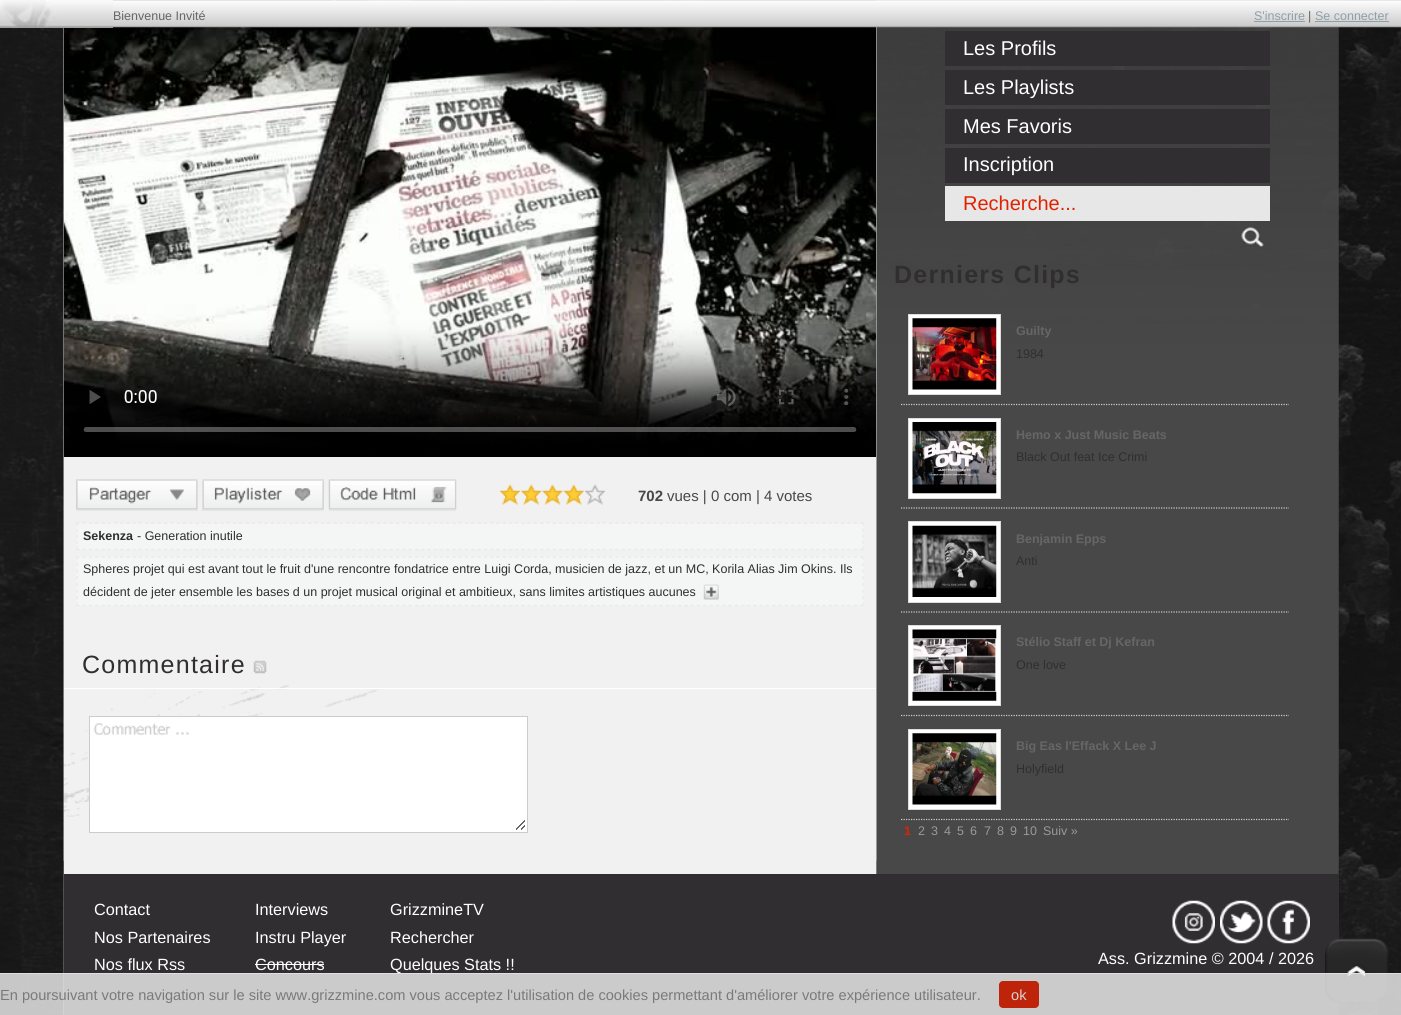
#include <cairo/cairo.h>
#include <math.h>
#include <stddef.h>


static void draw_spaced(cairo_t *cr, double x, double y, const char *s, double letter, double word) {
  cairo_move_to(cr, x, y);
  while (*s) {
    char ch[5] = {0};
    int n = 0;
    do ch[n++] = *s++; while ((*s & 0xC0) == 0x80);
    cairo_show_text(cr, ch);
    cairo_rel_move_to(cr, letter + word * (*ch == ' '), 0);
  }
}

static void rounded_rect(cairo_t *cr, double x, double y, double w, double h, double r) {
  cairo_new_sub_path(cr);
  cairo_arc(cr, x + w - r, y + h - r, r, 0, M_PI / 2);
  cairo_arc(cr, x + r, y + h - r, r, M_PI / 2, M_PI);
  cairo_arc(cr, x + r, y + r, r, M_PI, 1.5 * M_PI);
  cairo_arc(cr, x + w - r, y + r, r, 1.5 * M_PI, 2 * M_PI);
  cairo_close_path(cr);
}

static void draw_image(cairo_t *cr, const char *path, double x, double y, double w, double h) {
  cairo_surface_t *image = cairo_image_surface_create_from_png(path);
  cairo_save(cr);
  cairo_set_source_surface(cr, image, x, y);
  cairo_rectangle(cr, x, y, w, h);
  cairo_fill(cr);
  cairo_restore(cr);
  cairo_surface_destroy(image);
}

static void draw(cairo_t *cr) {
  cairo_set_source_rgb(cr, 1, 1, 1);
  cairo_paint(cr);
  draw_image(cr, "images/1.png", 0, 0, 1401, 1015);
  draw_image(cr, "images/4.png", 63, 0, 1276, 1015);
  draw_image(cr, "images/5.png", 63, 0, 814, 861);
  draw_image(cr, "images/6.png", 63, 0, 814, 457);
  draw_image(cr, "images/2.png", 113, 0, 1288, 28);
  draw_image(cr, "images/3.png", 0, 0, 113, 28);
  cairo_set_source_rgb(cr, 142 / 255.0, 159 / 255.0, 168 / 255.0);
  cairo_rectangle(cr, 1254, 21, 51, 1);
  cairo_fill(cr);
  cairo_rectangle(cr, 1315, 21, 74, 1);
  cairo_fill(cr);
  cairo_set_source_rgb(cr, 229 / 255.0, 229 / 255.0, 229 / 255.0);
  cairo_new_path(cr);
  cairo_move_to(cr, 76, 481);
  cairo_line_to(cr, 76, 511);
  cairo_line_to(cr, 198, 511);
  cairo_line_to(cr, 198, 481);
  cairo_line_to(cr, 198, 510);
  cairo_line_to(cr, 76, 510);
  cairo_close_path(cr);
  cairo_fill(cr);
  draw_image(cr, "images/7.png", 76, 479, 122, 31);
  cairo_set_source_rgba(cr, 1, 1, 1, 0.25);
  cairo_rectangle(cr, 76, 480, 122, 1);
  cairo_fill(cr);
  cairo_set_source_rgb(cr, 229 / 255.0, 229 / 255.0, 229 / 255.0);
  cairo_new_path(cr);
  cairo_move_to(cr, 201, 481);
  cairo_line_to(cr, 201, 511);
  cairo_line_to(cr, 324, 511);
  cairo_line_to(cr, 324, 481);
  cairo_line_to(cr, 324, 510);
  cairo_line_to(cr, 201, 510);
  cairo_close_path(cr);
  cairo_fill(cr);
  draw_image(cr, "images/8.png", 202, 479, 122, 31);
  cairo_set_source_rgba(cr, 1, 1, 1, 0.25);
  cairo_rectangle(cr, 201, 480, 123, 1);
  cairo_fill(cr);
  cairo_set_source_rgb(cr, 229 / 255.0, 229 / 255.0, 229 / 255.0);
  cairo_rectangle(cr, 329, 510, 127, 1);
  cairo_fill(cr);
  draw_image(cr, "images/9.png", 328, 479, 129, 31);
  cairo_set_source_rgba(cr, 1, 1, 1, 0.25);
  cairo_rectangle(cr, 329, 480, 127, 1);
  cairo_fill(cr);
  draw_image(cr, "images/10.png", 500, 484, 20, 21);
  draw_image(cr, "images/11.png", 521, 484, 21, 21);
  draw_image(cr, "images/12.png", 542, 484, 21, 21);
  draw_image(cr, "images/13.png", 563, 484, 21, 21);
  draw_image(cr, "images/14.png", 585, 484, 20, 21);
  cairo_set_source_rgb(cr, 244 / 255.0, 245 / 255.0, 245 / 255.0);
  cairo_rectangle(cr, 76, 523, 788, 27);
  cairo_fill(cr);
  cairo_new_path(cr);
  cairo_move_to(cr, 76, 523);
  cairo_line_to(cr, 864, 523);
  cairo_set_source_rgb(cr, 232 / 255.0, 232 / 255.0, 232 / 255.0);
  cairo_set_line_width(cr, 1.2);
  cairo_set_dash(cr, (double[]){3.75, 2.52}, 2, 0);
  cairo_stroke(cr);
  cairo_new_path(cr);
  cairo_move_to(cr, 863, 522.5);
  cairo_line_to(cr, 863, 550);
  cairo_set_dash(cr, (double[]){3.75, 2.19}, 2, 0);
  cairo_stroke(cr);
  cairo_new_path(cr);
  cairo_move_to(cr, 76, 549.5);
  cairo_line_to(cr, 864, 549.5);
  cairo_set_dash(cr, (double[]){3.75, 2.52}, 2, 0);
  cairo_stroke(cr);
  cairo_new_path(cr);
  cairo_move_to(cr, 77, 522.5);
  cairo_line_to(cr, 77, 550);
  cairo_set_dash(cr, (double[]){3.75, 2.19}, 2, 0);
  cairo_stroke(cr);
  cairo_set_source_rgb(cr, 244 / 255.0, 245 / 255.0, 245 / 255.0);
  cairo_rectangle(cr, 76, 556, 788, 50);
  cairo_fill(cr);
  cairo_new_path(cr);
  cairo_move_to(cr, 76, 557);
  cairo_line_to(cr, 864, 557);
  cairo_set_source_rgb(cr, 232 / 255.0, 232 / 255.0, 232 / 255.0);
  cairo_set_dash(cr, (double[]){3.75, 2.52}, 2, 0);
  cairo_stroke(cr);
  cairo_new_path(cr);
  cairo_move_to(cr, 863, 556);
  cairo_line_to(cr, 863, 606);
  cairo_set_dash(cr, (double[]){3.75, 2.86}, 2, 0);
  cairo_stroke(cr);
  cairo_new_path(cr);
  cairo_move_to(cr, 76, 605.5);
  cairo_line_to(cr, 864, 605.5);
  cairo_set_dash(cr, (double[]){3.75, 2.52}, 2, 0);
  cairo_stroke(cr);
  cairo_new_path(cr);
  cairo_move_to(cr, 77, 556);
  cairo_line_to(cr, 77, 606);
  cairo_set_dash(cr, (double[]){3.75, 2.86}, 2, 0);
  cairo_stroke(cr);
  draw_image(cr, "images/15.png", 703, 584, 16, 16);
  draw_image(cr, "images/16.png", 253, 660, 14, 14);
  cairo_set_source_rgb(cr, 1, 1, 1);
  cairo_rectangle(cr, 64, 688, 812, 1);
  cairo_fill(cr);
  cairo_rectangle(cr, 90, 717, 437, 115);
  cairo_fill(cr);
  draw_image(cr, "images/17.png", 93, 723, 432, 107);
  cairo_rectangle(cr, 89.5, 716.5, 438, 116);
  cairo_set_source_rgb(cr, 204 / 255.0, 204 / 255.0, 204 / 255.0);
  cairo_set_line_width(cr, 1);
  cairo_set_dash(cr, NULL, 0, 0);
  cairo_stroke(cr);
  cairo_set_source_rgb(cr, 49 / 255.0, 46 / 255.0, 49 / 255.0);
  cairo_rectangle(cr, 945, 31, 325, 35);
  cairo_fill(cr);
  cairo_rectangle(cr, 945, 70, 325, 35);
  cairo_fill(cr);
  cairo_rectangle(cr, 945, 109, 325, 35);
  cairo_fill(cr);
  cairo_rectangle(cr, 945, 148, 325, 35);
  cairo_fill(cr);
  cairo_set_source_rgb(cr, 231 / 255.0, 231 / 255.0, 231 / 255.0);
  cairo_rectangle(cr, 945, 186, 325, 35);
  cairo_fill(cr);
  draw_image(cr, "images/18.png", 1241, 227, 23, 20);
  cairo_new_path(cr);
  cairo_move_to(cr, 901, 404.5);
  cairo_line_to(cr, 1289, 404.5);
  cairo_set_source_rgb(cr, 204 / 255.0, 204 / 255.0, 204 / 255.0);
  cairo_set_line_width(cr, 1.2);
  cairo_set_dash(cr, (double[]){1.25, 1.25}, 2, 0);
  cairo_stroke(cr);
  cairo_set_source_rgb(cr, 1, 1, 1);
  cairo_rectangle(cr, 908.5, 314.5, 92, 80);
  cairo_fill_preserve(cr);
  cairo_set_source_rgb(cr, 221 / 255.0, 221 / 255.0, 221 / 255.0);
  cairo_set_line_width(cr, 1);
  cairo_set_dash(cr, NULL, 0, 0);
  cairo_stroke(cr);
  draw_image(cr, "images/19.png", 912, 318, 85, 72);
  cairo_new_path(cr);
  cairo_move_to(cr, 901, 508);
  cairo_line_to(cr, 1289, 508);
  cairo_set_source_rgb(cr, 204 / 255.0, 204 / 255.0, 204 / 255.0);
  cairo_set_line_width(cr, 1.2);
  cairo_set_dash(cr, (double[]){1.25, 1.25}, 2, 0);
  cairo_stroke(cr);
  cairo_set_source_rgb(cr, 1, 1, 1);
  cairo_rectangle(cr, 908.5, 418.5, 92, 80);
  cairo_fill_preserve(cr);
  cairo_set_source_rgb(cr, 221 / 255.0, 221 / 255.0, 221 / 255.0);
  cairo_set_line_width(cr, 1);
  cairo_set_dash(cr, NULL, 0, 0);
  cairo_stroke(cr);
  draw_image(cr, "images/20.png", 912, 422, 85, 72);
  cairo_new_path(cr);
  cairo_move_to(cr, 901, 612);
  cairo_line_to(cr, 1289, 612);
  cairo_set_source_rgb(cr, 204 / 255.0, 204 / 255.0, 204 / 255.0);
  cairo_set_line_width(cr, 1.2);
  cairo_set_dash(cr, (double[]){1.25, 1.25}, 2, 0);
  cairo_stroke(cr);
  cairo_set_source_rgb(cr, 1, 1, 1);
  cairo_rectangle(cr, 908.5, 521.5, 92, 81);
  cairo_fill_preserve(cr);
  cairo_set_source_rgb(cr, 221 / 255.0, 221 / 255.0, 221 / 255.0);
  cairo_set_line_width(cr, 1);
  cairo_set_dash(cr, NULL, 0, 0);
  cairo_stroke(cr);
  draw_image(cr, "images/21.png", 912, 525, 85, 72);
  cairo_new_path(cr);
  cairo_move_to(cr, 901, 715.5);
  cairo_line_to(cr, 1289, 715.5);
  cairo_set_source_rgb(cr, 204 / 255.0, 204 / 255.0, 204 / 255.0);
  cairo_set_line_width(cr, 1.2);
  cairo_set_dash(cr, (double[]){1.25, 1.25}, 2, 0);
  cairo_stroke(cr);
  cairo_set_source_rgb(cr, 1, 1, 1);
  cairo_rectangle(cr, 908.5, 625.5, 92, 80);
  cairo_fill_preserve(cr);
  cairo_set_source_rgb(cr, 221 / 255.0, 221 / 255.0, 221 / 255.0);
  cairo_set_line_width(cr, 1);
  cairo_set_dash(cr, NULL, 0, 0);
  cairo_stroke(cr);
  draw_image(cr, "images/22.png", 912, 629, 85, 72);
  cairo_new_path(cr);
  cairo_move_to(cr, 901, 819.5);
  cairo_line_to(cr, 1289, 819.5);
  cairo_set_source_rgb(cr, 204 / 255.0, 204 / 255.0, 204 / 255.0);
  cairo_set_line_width(cr, 1.2);
  cairo_set_dash(cr, (double[]){1.25, 1.25}, 2, 0);
  cairo_stroke(cr);
  cairo_set_source_rgb(cr, 1, 1, 1);
  cairo_rectangle(cr, 908.5, 729.5, 92, 80);
  cairo_fill_preserve(cr);
  cairo_set_source_rgb(cr, 221 / 255.0, 221 / 255.0, 221 / 255.0);
  cairo_set_line_width(cr, 1);
  cairo_set_dash(cr, NULL, 0, 0);
  cairo_stroke(cr);
  draw_image(cr, "images/23.png", 912, 733, 85, 72);
  cairo_set_source_rgb(cr, 49 / 255.0, 46 / 255.0, 49 / 255.0);
  cairo_rectangle(cr, 64, 874, 1275, 141);
  cairo_fill(cr);
  cairo_set_source_rgb(cr, 1, 1, 1);
  cairo_rectangle(cr, 255, 964, 69, 1);
  cairo_fill(cr);
  draw_image(cr, "images/24.png", 1172, 900, 43, 44);
  draw_image(cr, "images/25.png", 1220, 900, 43, 44);
  draw_image(cr, "images/26.png", 1267, 900, 43, 44);
  draw_image(cr, "images/27.png", 1325, 938, 64, 65);
  cairo_select_font_face(cr, "Liberation Sans", CAIRO_FONT_SLANT_NORMAL, CAIRO_FONT_WEIGHT_NORMAL);
  cairo_set_font_size(cr, 12.5);
  cairo_set_source_rgb(cr, 102 / 255.0, 102 / 255.0, 102 / 255.0);
  cairo_move_to(cr, 113, 20);
  cairo_show_text(cr, "Bienvenue Invité");
  cairo_set_source_rgb(cr, 142 / 255.0, 159 / 255.0, 168 / 255.0);
  cairo_move_to(cr, 1254, 20);
  cairo_show_text(cr, "S'inscrire");
  cairo_set_source_rgb(cr, 102 / 255.0, 102 / 255.0, 102 / 255.0);
  cairo_move_to(cr, 1308, 20);
  cairo_show_text(cr, "|");
  cairo_set_source_rgb(cr, 142 / 255.0, 159 / 255.0, 168 / 255.0);
  cairo_move_to(cr, 1315, 20);
  cairo_show_text(cr, "Se connecter");
  cairo_select_font_face(cr, "Liberation Sans", CAIRO_FONT_SLANT_NORMAL, CAIRO_FONT_WEIGHT_BOLD);
  cairo_set_font_size(cr, 15);
  cairo_set_source_rgb(cr, 72 / 255.0, 72 / 255.0, 72 / 255.0);
  cairo_move_to(cr, 638, 501);
  cairo_show_text(cr, "702");
  cairo_select_font_face(cr, "Liberation Sans", CAIRO_FONT_SLANT_NORMAL, CAIRO_FONT_WEIGHT_NORMAL);
  cairo_move_to(cr, 667, 501);
  cairo_show_text(cr, "vues | 0 com | 4 votes");
  cairo_select_font_face(cr, "Liberation Sans", CAIRO_FONT_SLANT_NORMAL, CAIRO_FONT_WEIGHT_BOLD);
  cairo_set_font_size(cr, 12.5);
  cairo_set_source_rgb(cr, 48 / 255.0, 46 / 255.0, 46 / 255.0);
  cairo_move_to(cr, 83, 540);
  cairo_show_text(cr, "Sekenza");
  cairo_select_font_face(cr, "Liberation Sans", CAIRO_FONT_SLANT_NORMAL, CAIRO_FONT_WEIGHT_NORMAL);
  cairo_move_to(cr, 137, 540);
  cairo_show_text(cr, "- Generation inutile");
  cairo_move_to(cr, 83, 573);
  cairo_show_text(cr, "Spheres projet qui est avant tout le fruit d'une rencontre fondatrice entre Luigi Corda, musicien de jazz, et un MC, Korila Alias Jim Okins. Ils");
  cairo_move_to(cr, 83, 596);
  cairo_show_text(cr, "décident de jeter ensemble les bases d un projet musical original et ambitieux, sans limites artistiques aucunes");
  cairo_set_font_size(cr, 25);
  draw_spaced(cr, 82, 673, "Commentaire", 1.25, 0);
  cairo_set_font_size(cr, 20);
  cairo_set_source_rgb(cr, 1, 1, 1);
  cairo_move_to(cr, 963, 55);
  cairo_show_text(cr, "Les Profils");
  cairo_move_to(cr, 963, 94);
  cairo_show_text(cr, "Les Playlists");
  cairo_move_to(cr, 963, 133);
  cairo_show_text(cr, "Mes Favoris");
  cairo_move_to(cr, 963, 171);
  cairo_show_text(cr, "Inscription");
  cairo_set_source_rgb(cr, 225 / 255.0, 34 / 255.0, 0);
  cairo_move_to(cr, 963, 210);
  cairo_show_text(cr, "Recherche...");
  cairo_select_font_face(cr, "Liberation Sans", CAIRO_FONT_SLANT_NORMAL, CAIRO_FONT_WEIGHT_BOLD);
  cairo_set_font_size(cr, 25);
  cairo_set_source_rgb(cr, 48 / 255.0, 46 / 255.0, 46 / 255.0);
  draw_spaced(cr, 894, 283, "Derniers Clips", 1.25, 0);
  cairo_set_font_size(cr, 12.5);
  cairo_set_source_rgb(cr, 102 / 255.0, 102 / 255.0, 102 / 255.0);
  cairo_move_to(cr, 1016, 335);
  cairo_show_text(cr, "Guilty");
  cairo_select_font_face(cr, "Liberation Sans", CAIRO_FONT_SLANT_NORMAL, CAIRO_FONT_WEIGHT_NORMAL);
  cairo_set_source_rgb(cr, 48 / 255.0, 46 / 255.0, 46 / 255.0);
  cairo_move_to(cr, 1016, 358);
  cairo_show_text(cr, "1984");
  cairo_select_font_face(cr, "Liberation Sans", CAIRO_FONT_SLANT_NORMAL, CAIRO_FONT_WEIGHT_BOLD);
  cairo_set_source_rgb(cr, 102 / 255.0, 102 / 255.0, 102 / 255.0);
  cairo_move_to(cr, 1016, 439);
  cairo_show_text(cr, "Hemo x Just Music Beats");
  cairo_select_font_face(cr, "Liberation Sans", CAIRO_FONT_SLANT_NORMAL, CAIRO_FONT_WEIGHT_NORMAL);
  cairo_set_source_rgb(cr, 48 / 255.0, 46 / 255.0, 46 / 255.0);
  cairo_move_to(cr, 1016, 461);
  cairo_show_text(cr, "Black Out feat Ice Crimi");
  cairo_select_font_face(cr, "Liberation Sans", CAIRO_FONT_SLANT_NORMAL, CAIRO_FONT_WEIGHT_BOLD);
  cairo_set_source_rgb(cr, 102 / 255.0, 102 / 255.0, 102 / 255.0);
  cairo_move_to(cr, 1016, 543);
  cairo_show_text(cr, "Benjamin Epps");
  cairo_select_font_face(cr, "Liberation Sans", CAIRO_FONT_SLANT_NORMAL, CAIRO_FONT_WEIGHT_NORMAL);
  cairo_set_source_rgb(cr, 48 / 255.0, 46 / 255.0, 46 / 255.0);
  cairo_move_to(cr, 1016, 565);
  cairo_show_text(cr, "Anti");
  cairo_select_font_face(cr, "Liberation Sans", CAIRO_FONT_SLANT_NORMAL, CAIRO_FONT_WEIGHT_BOLD);
  cairo_set_source_rgb(cr, 102 / 255.0, 102 / 255.0, 102 / 255.0);
  cairo_move_to(cr, 1016, 646);
  cairo_show_text(cr, "Stélio Staff et Dj Kefran");
  cairo_select_font_face(cr, "Liberation Sans", CAIRO_FONT_SLANT_NORMAL, CAIRO_FONT_WEIGHT_NORMAL);
  cairo_set_source_rgb(cr, 48 / 255.0, 46 / 255.0, 46 / 255.0);
  cairo_move_to(cr, 1016, 669);
  cairo_show_text(cr, "One love");
  cairo_select_font_face(cr, "Liberation Sans", CAIRO_FONT_SLANT_NORMAL, CAIRO_FONT_WEIGHT_BOLD);
  cairo_set_source_rgb(cr, 102 / 255.0, 102 / 255.0, 102 / 255.0);
  cairo_move_to(cr, 1016, 750);
  cairo_show_text(cr, "Big Eas l'Effack X Lee J");
  cairo_select_font_face(cr, "Liberation Sans", CAIRO_FONT_SLANT_NORMAL, CAIRO_FONT_WEIGHT_NORMAL);
  cairo_set_source_rgb(cr, 48 / 255.0, 46 / 255.0, 46 / 255.0);
  cairo_move_to(cr, 1016, 773);
  cairo_show_text(cr, "Holyfield");
  cairo_select_font_face(cr, "Liberation Sans", CAIRO_FONT_SLANT_NORMAL, CAIRO_FONT_WEIGHT_BOLD);
  cairo_set_source_rgb(cr, 225 / 255.0, 34 / 255.0, 0);
  cairo_move_to(cr, 904, 835);
  cairo_show_text(cr, "1");
  cairo_select_font_face(cr, "Liberation Sans", CAIRO_FONT_SLANT_NORMAL, CAIRO_FONT_WEIGHT_NORMAL);
  cairo_set_source_rgb(cr, 153 / 255.0, 153 / 255.0, 153 / 255.0);
  cairo_move_to(cr, 918, 835);
  cairo_show_text(cr, "2");
  cairo_move_to(cr, 931, 835);
  cairo_show_text(cr, "3");
  cairo_move_to(cr, 944, 835);
  cairo_show_text(cr, "4");
  cairo_move_to(cr, 957, 835);
  cairo_show_text(cr, "5");
  cairo_move_to(cr, 970, 835);
  cairo_show_text(cr, "6");
  cairo_move_to(cr, 984, 835);
  cairo_show_text(cr, "7");
  cairo_move_to(cr, 997, 835);
  cairo_show_text(cr, "8");
  cairo_move_to(cr, 1010, 835);
  cairo_show_text(cr, "9");
  cairo_move_to(cr, 1023, 835);
  cairo_show_text(cr, "10");
  cairo_move_to(cr, 1043, 835);
  cairo_show_text(cr, "Suiv »");
  cairo_set_font_size(cr, 16.25);
  cairo_set_source_rgb(cr, 1, 1, 1);
  cairo_move_to(cr, 94, 915);
  cairo_show_text(cr, "Contact");
  cairo_move_to(cr, 94, 943);
  cairo_show_text(cr, "Nos Partenaires");
  cairo_move_to(cr, 94, 970);
  cairo_show_text(cr, "Nos flux Rss");
  cairo_move_to(cr, 255, 915);
  cairo_show_text(cr, "Interviews");
  cairo_move_to(cr, 255, 943);
  cairo_show_text(cr, "Instru Player");
  cairo_move_to(cr, 255, 970);
  cairo_show_text(cr, "Concours");
  cairo_move_to(cr, 390, 915);
  cairo_show_text(cr, "GrizzmineTV");
  cairo_move_to(cr, 390, 943);
  cairo_show_text(cr, "Rechercher");
  cairo_move_to(cr, 390, 970);
  cairo_show_text(cr, "Quelques Stats !!");
  cairo_move_to(cr, 1098, 964);
  cairo_show_text(cr, "Ass. Grizzmine © 2004 / 2026");
  cairo_set_source_rgba(cr, 242 / 255.0, 242 / 255.0, 242 / 255.0, 0.8);
  cairo_rectangle(cr, 0, 973, 1401, 42);
  cairo_fill(cr);
  cairo_set_source_rgba(cr, 228 / 255.0, 228 / 255.0, 228 / 255.0, 0.8);
  cairo_rectangle(cr, 0, 973, 1401, 1);
  cairo_fill(cr);
  cairo_set_font_size(cr, 14.62);
  cairo_set_source_rgb(cr, 122 / 255.0, 122 / 255.0, 122 / 255.0);
  cairo_move_to(cr, 0, 1000);
  cairo_show_text(cr, "En poursuivant votre navigation sur le site www.grizzmine.com vous acceptez l'utilisation de cookies permettant d'améliorer votre expérience utilisateur.");
  cairo_set_source_rgb(cr, 190 / 255.0, 36 / 255.0, 10 / 255.0);
  rounded_rect(cr, 999, 981, 40, 27, 4);
  cairo_fill(cr);
  cairo_set_source_rgb(cr, 214 / 255.0, 213 / 255.0, 214 / 255.0);
  cairo_move_to(cr, 1011, 1000);
  cairo_show_text(cr, "ok");
}

int main(void) {
  cairo_surface_t *surface = cairo_image_surface_create(CAIRO_FORMAT_RGB24, 1401, 1015);
  cairo_t *cr = cairo_create(surface);
  cairo_font_options_t *options = cairo_font_options_create();
  cairo_font_options_set_hint_metrics(options, CAIRO_HINT_METRICS_OFF);
  cairo_font_options_set_hint_style(options, CAIRO_HINT_STYLE_NONE);
  cairo_set_font_options(cr, options);
  cairo_set_miter_limit(cr, 4);
  draw(cr);
  cairo_surface_write_to_png(surface, "out.png");
  cairo_font_options_destroy(options);
  cairo_destroy(cr);
  cairo_surface_destroy(surface);
  return 0;
}
